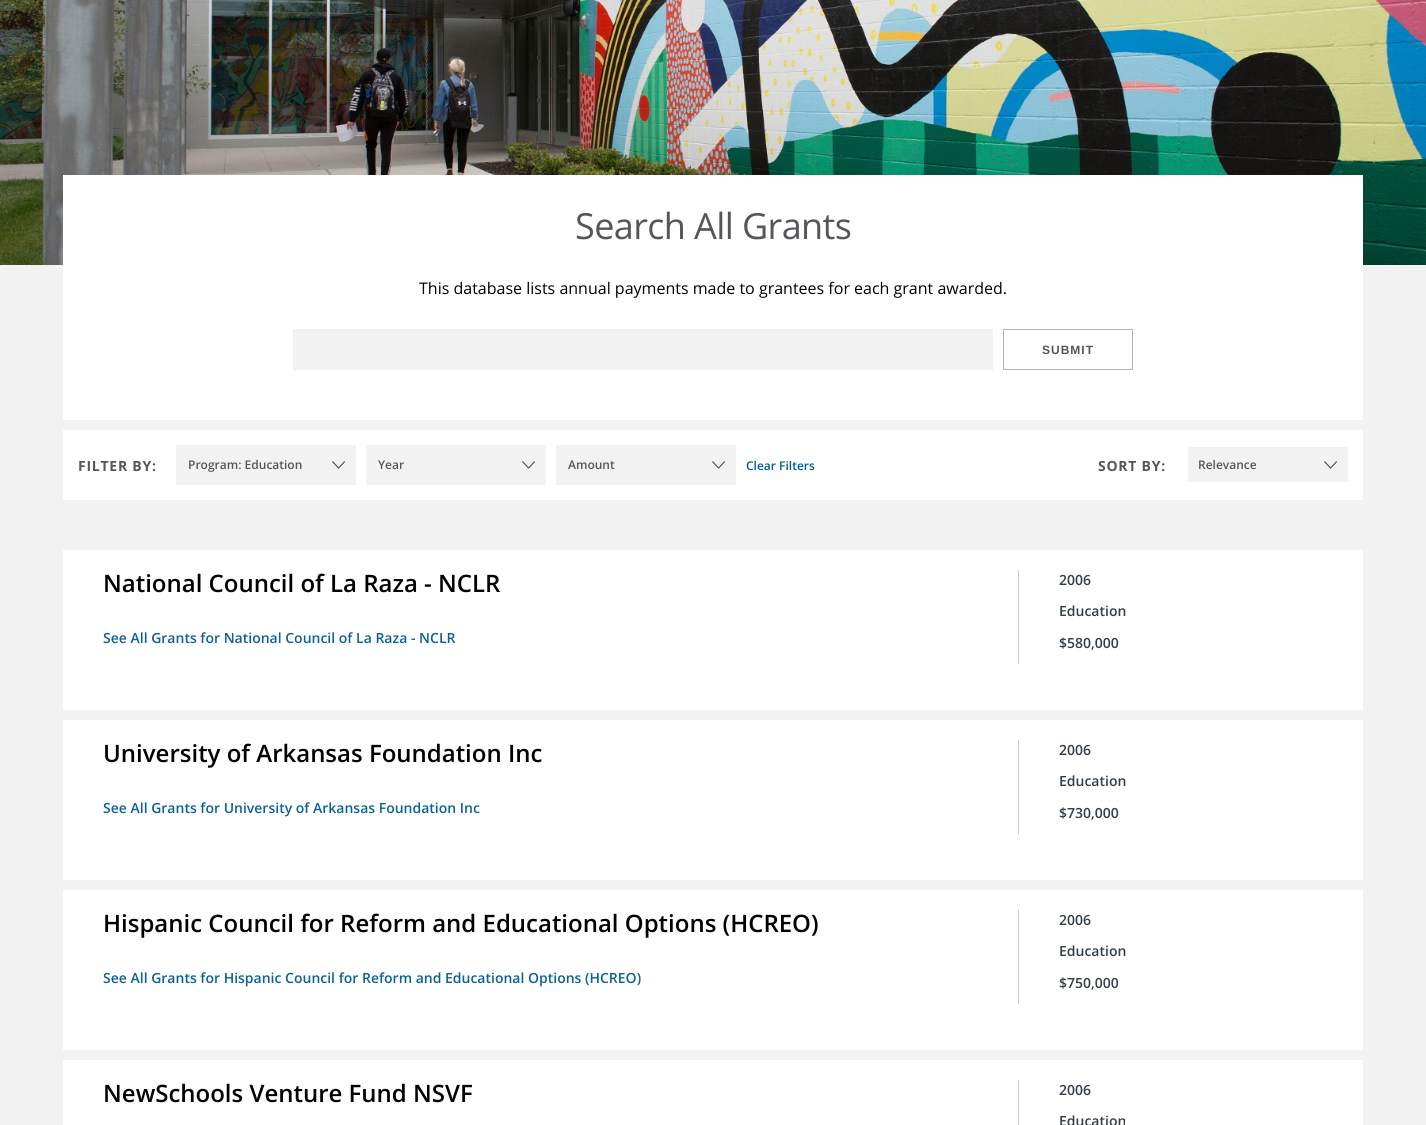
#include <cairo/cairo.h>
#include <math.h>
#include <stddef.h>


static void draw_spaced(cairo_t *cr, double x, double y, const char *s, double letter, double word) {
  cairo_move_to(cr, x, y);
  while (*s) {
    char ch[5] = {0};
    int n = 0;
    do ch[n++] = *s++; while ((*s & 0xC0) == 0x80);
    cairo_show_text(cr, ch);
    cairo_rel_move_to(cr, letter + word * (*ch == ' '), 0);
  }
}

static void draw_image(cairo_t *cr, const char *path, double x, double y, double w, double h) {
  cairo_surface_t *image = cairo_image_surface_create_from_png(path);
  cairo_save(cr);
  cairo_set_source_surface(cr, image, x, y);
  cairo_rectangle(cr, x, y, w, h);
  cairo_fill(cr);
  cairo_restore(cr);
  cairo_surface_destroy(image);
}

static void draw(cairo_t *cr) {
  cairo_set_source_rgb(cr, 242 / 255.0, 242 / 255.0, 242 / 255.0);
  cairo_paint(cr);
  draw_image(cr, "images/1.png", 0, 0, 1426, 265);
  cairo_set_source_rgb(cr, 1, 1, 1);
  cairo_rectangle(cr, 63, 175, 1300, 245);
  cairo_fill(cr);
  cairo_set_source_rgb(cr, 242 / 255.0, 242 / 255.0, 242 / 255.0);
  cairo_rectangle(cr, 293, 329, 700, 41);
  cairo_fill(cr);
  cairo_rectangle(cr, 1003.5, 329.5, 129, 40);
  cairo_set_source_rgb(cr, 173 / 255.0, 184 / 255.0, 182 / 255.0);
  cairo_set_line_width(cr, 1);
  cairo_stroke(cr);
  cairo_set_source_rgb(cr, 1, 1, 1);
  cairo_rectangle(cr, 63, 430, 1300, 70);
  cairo_fill(cr);
  cairo_set_source_rgb(cr, 242 / 255.0, 242 / 255.0, 242 / 255.0);
  cairo_rectangle(cr, 176, 445, 180, 40);
  cairo_fill(cr);
  draw_image(cr, "images/2.png", 332, 461, 13, 8);
  cairo_rectangle(cr, 366, 445, 180, 40);
  cairo_fill(cr);
  draw_image(cr, "images/2.png", 522, 461, 13, 8);
  cairo_rectangle(cr, 556, 445, 180, 40);
  cairo_fill(cr);
  draw_image(cr, "images/2.png", 712, 461, 13, 8);
  cairo_rectangle(cr, 1188, 447, 160, 35);
  cairo_fill(cr);
  draw_image(cr, "images/2.png", 1324, 461, 13, 8);
  cairo_set_source_rgb(cr, 1, 1, 1);
  cairo_rectangle(cr, 63, 550, 1300, 160);
  cairo_fill(cr);
  cairo_set_source_rgb(cr, 204 / 255.0, 204 / 255.0, 204 / 255.0);
  cairo_rectangle(cr, 1018, 570, 1, 94);
  cairo_fill(cr);
  cairo_set_source_rgb(cr, 1, 1, 1);
  cairo_rectangle(cr, 63, 720, 1300, 160);
  cairo_fill(cr);
  cairo_set_source_rgb(cr, 204 / 255.0, 204 / 255.0, 204 / 255.0);
  cairo_rectangle(cr, 1018, 740, 1, 94);
  cairo_fill(cr);
  cairo_set_source_rgb(cr, 1, 1, 1);
  cairo_rectangle(cr, 63, 890, 1300, 160);
  cairo_fill(cr);
  cairo_set_source_rgb(cr, 204 / 255.0, 204 / 255.0, 204 / 255.0);
  cairo_rectangle(cr, 1018, 910, 1, 94);
  cairo_fill(cr);
  cairo_set_source_rgb(cr, 1, 1, 1);
  cairo_rectangle(cr, 63, 1060, 1300, 65);
  cairo_fill(cr);
  cairo_set_source_rgb(cr, 204 / 255.0, 204 / 255.0, 204 / 255.0);
  cairo_rectangle(cr, 1018, 1080, 1, 45);
  cairo_fill(cr);
  cairo_select_font_face(cr, "Open Sans", CAIRO_FONT_SLANT_NORMAL, CAIRO_FONT_WEIGHT_NORMAL);
  cairo_set_font_size(cr, 36);
  cairo_set_source_rgb(cr, 84 / 255.0, 86 / 255.0, 90 / 255.0);
  draw_spaced(cr, 575, 239, "Search All Grants", -0.6, 0);
  cairo_set_font_size(cr, 16);
  cairo_set_source_rgb(cr, 0, 0, 0);
  cairo_move_to(cr, 419, 294);
  cairo_show_text(cr, "This database lists annual payments made to grantees for each grant awarded.");
  cairo_select_font_face(cr, "Liberation Sans", CAIRO_FONT_SLANT_NORMAL, CAIRO_FONT_WEIGHT_BOLD);
  cairo_set_font_size(cr, 12);
  cairo_set_source_rgb(cr, 84 / 255.0, 86 / 255.0, 90 / 255.0);
  draw_spaced(cr, 1042, 354, "SUBMIT", 1, 0);
  cairo_select_font_face(cr, "Open Sans", CAIRO_FONT_SLANT_NORMAL, CAIRO_FONT_WEIGHT_BOLD);
  cairo_set_font_size(cr, 14);
  draw_spaced(cr, 78, 471, "FILTER BY:", 0.75, 0);
  cairo_select_font_face(cr, "Open Sans SemiBold", CAIRO_FONT_SLANT_NORMAL, CAIRO_FONT_WEIGHT_NORMAL);
  cairo_set_font_size(cr, 12);
  cairo_move_to(cr, 188, 469);
  cairo_show_text(cr, "Program: Education");
  cairo_move_to(cr, 378, 469);
  cairo_show_text(cr, "Year");
  cairo_move_to(cr, 568, 469);
  cairo_show_text(cr, "Amount");
  cairo_set_source_rgb(cr, 0, 91 / 255.0, 148 / 255.0);
  cairo_move_to(cr, 746, 470);
  cairo_show_text(cr, "Clear Filters");
  cairo_select_font_face(cr, "Open Sans", CAIRO_FONT_SLANT_NORMAL, CAIRO_FONT_WEIGHT_BOLD);
  cairo_set_font_size(cr, 14);
  cairo_set_source_rgb(cr, 84 / 255.0, 86 / 255.0, 90 / 255.0);
  draw_spaced(cr, 1098, 471, "SORT BY:", 0.75, 0);
  cairo_select_font_face(cr, "Open Sans SemiBold", CAIRO_FONT_SLANT_NORMAL, CAIRO_FONT_WEIGHT_NORMAL);
  cairo_set_font_size(cr, 12);
  cairo_move_to(cr, 1198, 469);
  cairo_show_text(cr, "Relevance");
  cairo_set_font_size(cr, 24);
  cairo_set_source_rgb(cr, 0, 0, 0);
  cairo_move_to(cr, 103, 592);
  cairo_show_text(cr, "National Council of La Raza - NCLR");
  cairo_set_font_size(cr, 14);
  cairo_set_source_rgb(cr, 13 / 255.0, 97 / 255.0, 153 / 255.0);
  cairo_move_to(cr, 103, 643);
  cairo_show_text(cr, "See All Grants for National Council of La Raza - NCLR");
  cairo_set_source_rgb(cr, 51 / 255.0, 62 / 255.0, 72 / 255.0);
  cairo_move_to(cr, 1059, 585);
  cairo_show_text(cr, "2006");
  cairo_move_to(cr, 1059, 616);
  cairo_show_text(cr, "Education");
  cairo_move_to(cr, 1059, 648);
  cairo_show_text(cr, "$580,000");
  cairo_set_font_size(cr, 24);
  cairo_set_source_rgb(cr, 0, 0, 0);
  cairo_move_to(cr, 103, 762);
  cairo_show_text(cr, "University of Arkansas Foundation Inc");
  cairo_set_font_size(cr, 14);
  cairo_set_source_rgb(cr, 13 / 255.0, 97 / 255.0, 153 / 255.0);
  cairo_move_to(cr, 103, 813);
  cairo_show_text(cr, "See All Grants for University of Arkansas Foundation Inc");
  cairo_set_source_rgb(cr, 51 / 255.0, 62 / 255.0, 72 / 255.0);
  cairo_move_to(cr, 1059, 755);
  cairo_show_text(cr, "2006");
  cairo_move_to(cr, 1059, 786);
  cairo_show_text(cr, "Education");
  cairo_move_to(cr, 1059, 818);
  cairo_show_text(cr, "$730,000");
  cairo_set_font_size(cr, 24);
  cairo_set_source_rgb(cr, 0, 0, 0);
  cairo_move_to(cr, 103, 932);
  cairo_show_text(cr, "Hispanic Council for Reform and Educational Options (HCREO)");
  cairo_set_font_size(cr, 14);
  cairo_set_source_rgb(cr, 13 / 255.0, 97 / 255.0, 153 / 255.0);
  cairo_move_to(cr, 103, 983);
  cairo_show_text(cr, "See All Grants for Hispanic Council for Reform and Educational Options (HCREO)");
  cairo_set_source_rgb(cr, 51 / 255.0, 62 / 255.0, 72 / 255.0);
  cairo_move_to(cr, 1059, 925);
  cairo_show_text(cr, "2006");
  cairo_move_to(cr, 1059, 956);
  cairo_show_text(cr, "Education");
  cairo_move_to(cr, 1059, 988);
  cairo_show_text(cr, "$750,000");
  cairo_set_font_size(cr, 24);
  cairo_set_source_rgb(cr, 0, 0, 0);
  cairo_move_to(cr, 103, 1102);
  cairo_show_text(cr, "NewSchools Venture Fund NSVF");
  cairo_set_font_size(cr, 14);
  cairo_set_source_rgb(cr, 51 / 255.0, 62 / 255.0, 72 / 255.0);
  cairo_move_to(cr, 1059, 1095);
  cairo_show_text(cr, "2006");
  cairo_move_to(cr, 1059, 1126);
  cairo_show_text(cr, "Education");
}

int main(void) {
  cairo_surface_t *surface = cairo_image_surface_create(CAIRO_FORMAT_RGB24, 1426, 1125);
  cairo_t *cr = cairo_create(surface);
  cairo_font_options_t *options = cairo_font_options_create();
  cairo_font_options_set_hint_metrics(options, CAIRO_HINT_METRICS_OFF);
  cairo_font_options_set_hint_style(options, CAIRO_HINT_STYLE_NONE);
  cairo_set_font_options(cr, options);
  cairo_set_miter_limit(cr, 4);
  draw(cr);
  cairo_surface_write_to_png(surface, "out.png");
  cairo_font_options_destroy(options);
  cairo_destroy(cr);
  cairo_surface_destroy(surface);
  return 0;
}
